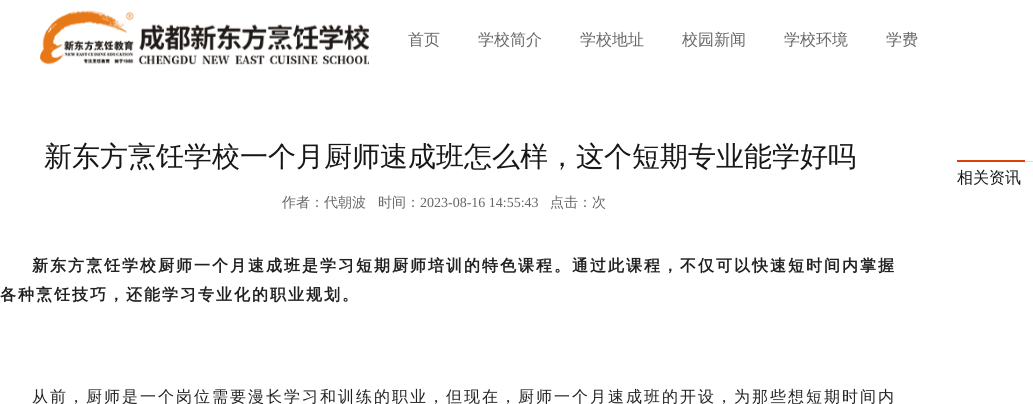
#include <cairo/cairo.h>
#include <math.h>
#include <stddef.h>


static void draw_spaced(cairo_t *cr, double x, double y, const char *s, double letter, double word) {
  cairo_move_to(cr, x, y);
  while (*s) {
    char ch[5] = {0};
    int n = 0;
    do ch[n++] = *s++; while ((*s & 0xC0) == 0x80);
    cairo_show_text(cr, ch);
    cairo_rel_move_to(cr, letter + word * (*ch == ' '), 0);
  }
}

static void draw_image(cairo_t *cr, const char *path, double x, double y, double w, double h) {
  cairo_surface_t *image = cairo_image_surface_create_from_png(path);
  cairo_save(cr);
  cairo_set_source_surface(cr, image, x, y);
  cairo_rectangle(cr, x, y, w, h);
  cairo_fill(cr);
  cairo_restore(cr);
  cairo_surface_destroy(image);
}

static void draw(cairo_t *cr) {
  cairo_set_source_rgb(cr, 1, 1, 1);
  cairo_paint(cr);
  draw_image(cr, "images/1.png", 40, 10, 329, 55);
  cairo_set_source_rgb(cr, 221 / 255.0, 66 / 255.0, 0);
  cairo_rectangle(cr, 957, 160, 68, 2);
  cairo_fill(cr);
  cairo_set_source_rgb(cr, 224 / 255.0, 224 / 255.0, 224 / 255.0);
  cairo_rectangle(cr, 1025, 161, 8, 1);
  cairo_fill(cr);
  cairo_select_font_face(cr, "WenQuanYi Zen Hei Medium", CAIRO_FONT_SLANT_NORMAL, CAIRO_FONT_WEIGHT_NORMAL);
  cairo_set_font_size(cr, 16);
  cairo_set_source_rgb(cr, 102 / 255.0, 102 / 255.0, 102 / 255.0);
  cairo_move_to(cr, 408, 45);
  cairo_show_text(cr, "首页");
  cairo_move_to(cr, 478, 45);
  cairo_show_text(cr, "学校简介");
  cairo_move_to(cr, 580, 45);
  cairo_show_text(cr, "学校地址");
  cairo_move_to(cr, 682, 45);
  cairo_show_text(cr, "校园新闻");
  cairo_move_to(cr, 784, 45);
  cairo_show_text(cr, "学校环境");
  cairo_move_to(cr, 886, 45);
  cairo_show_text(cr, "学费");
  cairo_set_font_size(cr, 28);
  cairo_set_source_rgb(cr, 23 / 255.0, 23 / 255.0, 23 / 255.0);
  cairo_move_to(cr, 44, 166);
  cairo_show_text(cr, "新东方烹饪学校一个月厨师速成班怎么样，这个短期专业能学好吗");
  cairo_set_font_size(cr, 14);
  cairo_set_source_rgb(cr, 102 / 255.0, 102 / 255.0, 102 / 255.0);
  cairo_move_to(cr, 282, 207);
  cairo_show_text(cr, "作者：代朝波");
  cairo_move_to(cr, 378, 207);
  cairo_show_text(cr, "时间：");
  cairo_select_font_face(cr, "Liberation Serif", CAIRO_FONT_SLANT_NORMAL, CAIRO_FONT_WEIGHT_NORMAL);
  cairo_move_to(cr, 420, 207);
  cairo_show_text(cr, "2023-08-16 14:55:43");
  cairo_select_font_face(cr, "WenQuanYi Zen Hei Medium", CAIRO_FONT_SLANT_NORMAL, CAIRO_FONT_WEIGHT_NORMAL);
  cairo_move_to(cr, 550, 207);
  cairo_show_text(cr, "点击：次");
  cairo_select_font_face(cr, "WenQuanYi Zen Hei", CAIRO_FONT_SLANT_NORMAL, CAIRO_FONT_WEIGHT_BOLD);
  cairo_set_font_size(cr, 16);
  cairo_set_source_rgb(cr, 33 / 255.0, 33 / 255.0, 33 / 255.0);
  draw_spaced(cr, 32, 271, "新东方烹饪学校厨师一个月速成班是学习短期厨师培训的特色课程。通过此课程，不仅可以快速短时间内掌握", 2, 0);
  draw_spaced(cr, 0, 300, "各种烹饪技巧，还能学习专业化的职业规划。", 2, 0);
  cairo_select_font_face(cr, "WenQuanYi Zen Hei Medium", CAIRO_FONT_SLANT_NORMAL, CAIRO_FONT_WEIGHT_NORMAL);
  draw_spaced(cr, 32, 402, "从前，厨师是一个岗位需要漫长学习和训练的职业，但现在，厨师一个月速成班的开设，为那些想短期时间内", 2, 0);
  cairo_set_source_rgb(cr, 23 / 255.0, 23 / 255.0, 23 / 255.0);
  cairo_move_to(cr, 957, 183);
  cairo_show_text(cr, "相关资讯");
}

int main(void) {
  cairo_surface_t *surface = cairo_image_surface_create(CAIRO_FORMAT_RGB24, 1033, 404);
  cairo_t *cr = cairo_create(surface);
  cairo_font_options_t *options = cairo_font_options_create();
  cairo_font_options_set_hint_metrics(options, CAIRO_HINT_METRICS_OFF);
  cairo_font_options_set_hint_style(options, CAIRO_HINT_STYLE_NONE);
  cairo_set_font_options(cr, options);
  cairo_set_miter_limit(cr, 4);
  draw(cr);
  cairo_surface_write_to_png(surface, "out.png");
  cairo_font_options_destroy(options);
  cairo_destroy(cr);
  cairo_surface_destroy(surface);
  return 0;
}
